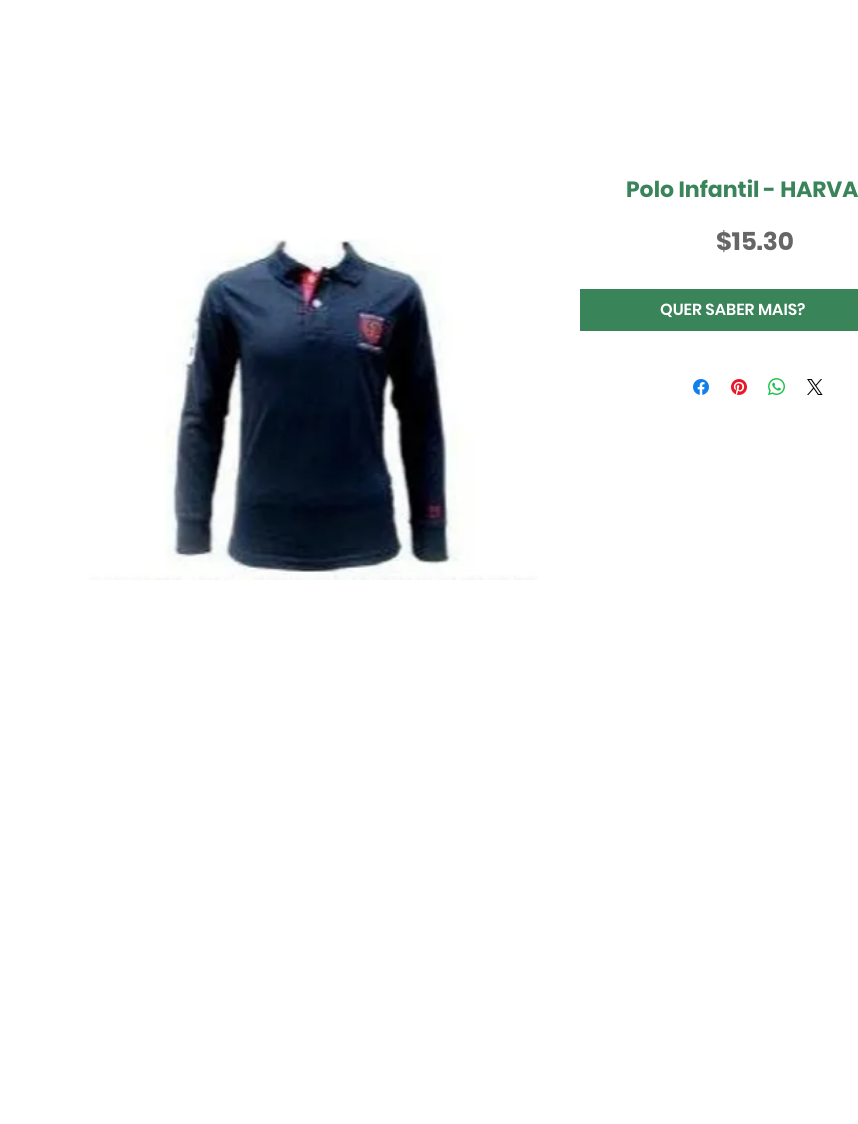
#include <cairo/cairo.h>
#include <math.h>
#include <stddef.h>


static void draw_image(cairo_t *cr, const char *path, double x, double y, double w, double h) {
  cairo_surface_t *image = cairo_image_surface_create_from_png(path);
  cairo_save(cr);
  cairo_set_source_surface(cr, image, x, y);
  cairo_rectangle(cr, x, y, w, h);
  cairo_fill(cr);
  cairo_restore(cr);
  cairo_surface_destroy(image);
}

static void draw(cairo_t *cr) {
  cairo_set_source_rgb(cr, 1, 1, 1);
  cairo_paint(cr);
  draw_image(cr, "images/1.png", 89, 238, 449, 342);
  cairo_set_source_rgb(cr, 58 / 255.0, 132 / 255.0, 90 / 255.0);
  cairo_rectangle(cr, 580, 289, 278, 42);
  cairo_fill(cr);
  draw_image(cr, "images/2.png", 693, 379, 16, 16);
  draw_image(cr, "images/3.png", 731, 379, 16, 16);
  draw_image(cr, "images/4.png", 768, 378, 17, 17);
  draw_image(cr, "images/5.png", 807, 379, 16, 16);
  cairo_select_font_face(cr, "Poppins", CAIRO_FONT_SLANT_NORMAL, CAIRO_FONT_WEIGHT_BOLD);
  cairo_set_font_size(cr, 22);
  cairo_move_to(cr, 626, 197);
  cairo_show_text(cr, "Polo Infantil - HARVA");
  cairo_set_font_size(cr, 25);
  cairo_set_source_rgb(cr, 102 / 255.0, 102 / 255.0, 102 / 255.0);
  cairo_move_to(cr, 716, 250);
  cairo_show_text(cr, "$15.30");
  cairo_select_font_face(cr, "Poppins SemiBold", CAIRO_FONT_SLANT_NORMAL, CAIRO_FONT_WEIGHT_NORMAL);
  cairo_set_font_size(cr, 16);
  cairo_set_source_rgb(cr, 1, 1, 1);
  cairo_move_to(cr, 660, 315);
  cairo_show_text(cr, "QUER SABER MAIS?");
}

int main(void) {
  cairo_surface_t *surface = cairo_image_surface_create(CAIRO_FORMAT_RGB24, 858, 1124);
  cairo_t *cr = cairo_create(surface);
  cairo_font_options_t *options = cairo_font_options_create();
  cairo_font_options_set_hint_metrics(options, CAIRO_HINT_METRICS_OFF);
  cairo_font_options_set_hint_style(options, CAIRO_HINT_STYLE_NONE);
  cairo_set_font_options(cr, options);
  cairo_set_miter_limit(cr, 4);
  draw(cr);
  cairo_surface_write_to_png(surface, "out.png");
  cairo_font_options_destroy(options);
  cairo_destroy(cr);
  cairo_surface_destroy(surface);
  return 0;
}
